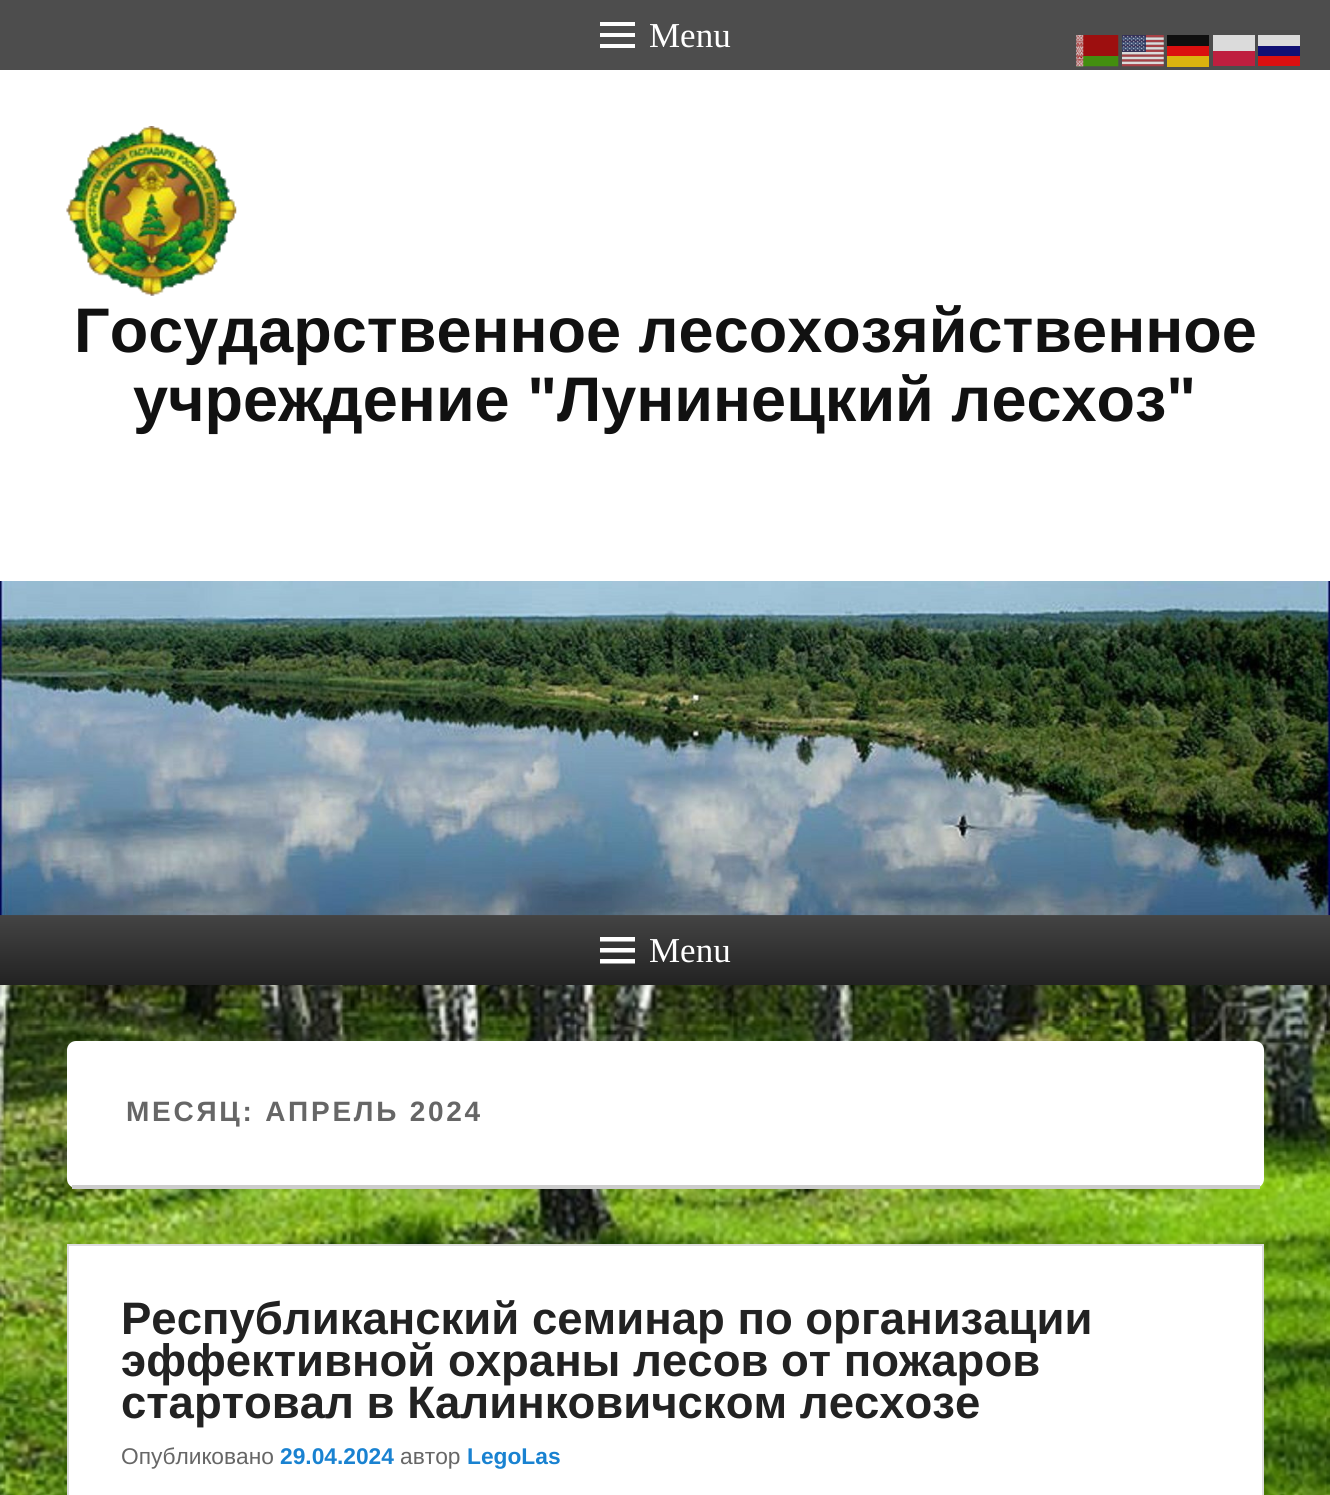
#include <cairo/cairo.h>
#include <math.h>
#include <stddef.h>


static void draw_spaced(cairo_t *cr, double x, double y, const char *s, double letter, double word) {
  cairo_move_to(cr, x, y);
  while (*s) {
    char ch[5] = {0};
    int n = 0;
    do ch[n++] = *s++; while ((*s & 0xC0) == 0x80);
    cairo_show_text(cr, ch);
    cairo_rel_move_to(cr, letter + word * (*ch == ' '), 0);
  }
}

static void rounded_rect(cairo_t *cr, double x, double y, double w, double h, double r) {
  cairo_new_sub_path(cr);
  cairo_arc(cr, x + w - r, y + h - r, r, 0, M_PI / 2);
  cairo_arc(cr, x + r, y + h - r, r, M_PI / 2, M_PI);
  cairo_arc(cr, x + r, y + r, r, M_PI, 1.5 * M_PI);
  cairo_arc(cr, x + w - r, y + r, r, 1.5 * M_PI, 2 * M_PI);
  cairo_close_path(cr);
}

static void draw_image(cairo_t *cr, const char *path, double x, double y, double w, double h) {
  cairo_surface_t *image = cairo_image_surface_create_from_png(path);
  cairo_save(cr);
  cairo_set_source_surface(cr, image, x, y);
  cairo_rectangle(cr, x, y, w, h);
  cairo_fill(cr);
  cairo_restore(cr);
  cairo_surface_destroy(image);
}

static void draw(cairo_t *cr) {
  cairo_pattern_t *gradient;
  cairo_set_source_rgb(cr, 1, 1, 1);
  cairo_paint(cr);
  draw_image(cr, "images/1.png", 0, 985, 1330, 510);
  cairo_set_source_rgb(cr, 77 / 255.0, 77 / 255.0, 77 / 255.0);
  cairo_rectangle(cr, 0, 0, 1330, 70);
  cairo_fill(cr);
  cairo_set_source_rgb(cr, 1, 1, 1);
  cairo_new_path(cr);
  cairo_move_to(cr, 600, 48);
  cairo_line_to(cr, 600, 44);
  cairo_line_to(cr, 635, 44);
  cairo_line_to(cr, 635, 48);
  cairo_close_path(cr);
  cairo_move_to(cr, 600, 22);
  cairo_line_to(cr, 635, 22);
  cairo_line_to(cr, 635, 26);
  cairo_line_to(cr, 600, 26);
  cairo_close_path(cr);
  cairo_move_to(cr, 600, 37);
  cairo_line_to(cr, 600, 33);
  cairo_line_to(cr, 635, 33);
  cairo_line_to(cr, 635, 37);
  cairo_close_path(cr);
  cairo_fill(cr);
  draw_image(cr, "images/2.png", 66, 126, 171, 170);
  gradient = cairo_pattern_create_linear(665, 915, 665, 985);
  cairo_pattern_add_color_stop_rgba(gradient, 0, 68 / 255.0, 68 / 255.0, 68 / 255.0, 1);
  cairo_pattern_add_color_stop_rgba(gradient, 1, 34 / 255.0, 34 / 255.0, 34 / 255.0, 1);
  cairo_set_source(cr, gradient);
  cairo_pattern_destroy(gradient);
  cairo_rectangle(cr, 0, 915, 1330, 70);
  cairo_fill(cr);
  draw_image(cr, "images/3.png", 0, 581, 1330, 335);
  cairo_set_source_rgb(cr, 1, 1, 1);
  cairo_new_path(cr);
  cairo_move_to(cr, 600, 963.5);
  cairo_line_to(cr, 600, 959);
  cairo_line_to(cr, 635, 959);
  cairo_line_to(cr, 635, 963.5);
  cairo_close_path(cr);
  cairo_move_to(cr, 600, 937);
  cairo_line_to(cr, 635, 937);
  cairo_line_to(cr, 635, 941.5);
  cairo_line_to(cr, 600, 941.5);
  cairo_close_path(cr);
  cairo_move_to(cr, 600, 952.5);
  cairo_line_to(cr, 600, 948);
  cairo_line_to(cr, 635, 948);
  cairo_line_to(cr, 635, 952.5);
  cairo_close_path(cr);
  cairo_fill(cr);
  rounded_rect(cr, 67, 1041, 1197, 147, 9);
  cairo_fill(cr);
  cairo_set_source_rgb(cr, 204 / 255.0, 204 / 255.0, 204 / 255.0);
  cairo_rectangle(cr, 72, 1185, 1188, 4);
  cairo_fill(cr);
  cairo_set_source_rgb(cr, 1, 1, 1);
  cairo_rectangle(cr, 68, 1245, 1195, 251);
  cairo_fill_preserve(cr);
  cairo_set_source_rgb(cr, 221 / 255.0, 221 / 255.0, 221 / 255.0);
  cairo_stroke(cr);
  draw_image(cr, "images/4.png", 1076, 35, 43, 32);
  draw_image(cr, "images/5.png", 1122, 35, 42, 32);
  cairo_set_source_rgb(cr, 15 / 255.0, 15 / 255.0, 15 / 255.0);
  cairo_rectangle(cr, 1167, 35, 42, 11);
  cairo_fill(cr);
  cairo_set_source_rgb(cr, 219 / 255.0, 219 / 255.0, 219 / 255.0);
  cairo_rectangle(cr, 1213, 35, 42, 16);
  cairo_fill(cr);
  cairo_rectangle(cr, 1258, 35, 42, 11);
  cairo_fill(cr);
  cairo_set_source_rgb(cr, 219 / 255.0, 15 / 255.0, 15 / 255.0);
  cairo_rectangle(cr, 1167, 46, 42, 10);
  cairo_fill(cr);
  cairo_set_source_rgb(cr, 191 / 255.0, 31 / 255.0, 63 / 255.0);
  cairo_rectangle(cr, 1213, 51, 42, 15);
  cairo_fill(cr);
  cairo_set_source_rgb(cr, 16 / 255.0, 16 / 255.0, 116 / 255.0);
  cairo_rectangle(cr, 1258, 46, 42, 10);
  cairo_fill(cr);
  cairo_set_source_rgb(cr, 219 / 255.0, 179 / 255.0, 15 / 255.0);
  cairo_rectangle(cr, 1167, 56, 42, 11);
  cairo_fill(cr);
  cairo_set_source_rgb(cr, 219 / 255.0, 16 / 255.0, 16 / 255.0);
  cairo_rectangle(cr, 1258, 56, 42, 10);
  cairo_fill(cr);
  cairo_select_font_face(cr, "Liberation Serif", CAIRO_FONT_SLANT_NORMAL, CAIRO_FONT_WEIGHT_NORMAL);
  cairo_set_font_size(cr, 35);
  cairo_set_source_rgb(cr, 1, 1, 1);
  cairo_move_to(cr, 649, 47);
  cairo_show_text(cr, "Menu");
  cairo_select_font_face(cr, "Liberation Sans", CAIRO_FONT_SLANT_NORMAL, CAIRO_FONT_WEIGHT_BOLD);
  cairo_set_font_size(cr, 63);
  cairo_set_source_rgb(cr, 17 / 255.0, 17 / 255.0, 17 / 255.0);
  cairo_move_to(cr, 74, 352);
  cairo_show_text(cr, "Государственное лесохозяйственное");
  cairo_move_to(cr, 133, 421);
  cairo_show_text(cr, "учреждение \"Лунинецкий лесхоз\"");
  cairo_select_font_face(cr, "Liberation Serif", CAIRO_FONT_SLANT_NORMAL, CAIRO_FONT_WEIGHT_NORMAL);
  cairo_set_font_size(cr, 35);
  cairo_set_source_rgb(cr, 1, 1, 1);
  cairo_move_to(cr, 649, 962);
  cairo_show_text(cr, "Menu");
  cairo_select_font_face(cr, "Liberation Sans", CAIRO_FONT_SLANT_NORMAL, CAIRO_FONT_WEIGHT_BOLD);
  cairo_set_font_size(cr, 28);
  cairo_set_source_rgb(cr, 102 / 255.0, 102 / 255.0, 102 / 255.0);
  draw_spaced(cr, 126, 1121, "МЕСЯЦ: АПРЕЛЬ 2024", 2.75, 0);
  cairo_set_font_size(cr, 45.5);
  cairo_set_source_rgb(cr, 34 / 255.0, 34 / 255.0, 34 / 255.0);
  cairo_move_to(cr, 121, 1334);
  cairo_show_text(cr, "Республиканский семинар по организации");
  cairo_move_to(cr, 121, 1376);
  cairo_show_text(cr, "эффективной охраны лесов от пожаров");
  cairo_move_to(cr, 121, 1418);
  cairo_show_text(cr, "стартовал в Калинковичском лесхозе");
  cairo_select_font_face(cr, "Liberation Sans", CAIRO_FONT_SLANT_NORMAL, CAIRO_FONT_WEIGHT_NORMAL);
  cairo_set_font_size(cr, 22.75);
  cairo_set_source_rgb(cr, 102 / 255.0, 102 / 255.0, 102 / 255.0);
  cairo_move_to(cr, 121, 1464);
  cairo_show_text(cr, "Опубликовано");
  cairo_select_font_face(cr, "Liberation Sans", CAIRO_FONT_SLANT_NORMAL, CAIRO_FONT_WEIGHT_BOLD);
  cairo_set_source_rgb(cr, 25 / 255.0, 130 / 255.0, 209 / 255.0);
  cairo_move_to(cr, 280, 1464);
  cairo_show_text(cr, "29.04.2024");
  cairo_select_font_face(cr, "Liberation Sans", CAIRO_FONT_SLANT_NORMAL, CAIRO_FONT_WEIGHT_NORMAL);
  cairo_set_source_rgb(cr, 102 / 255.0, 102 / 255.0, 102 / 255.0);
  cairo_move_to(cr, 400, 1464);
  cairo_show_text(cr, "автор");
  cairo_select_font_face(cr, "Liberation Sans", CAIRO_FONT_SLANT_NORMAL, CAIRO_FONT_WEIGHT_BOLD);
  cairo_set_source_rgb(cr, 25 / 255.0, 130 / 255.0, 209 / 255.0);
  cairo_move_to(cr, 467, 1464);
  cairo_show_text(cr, "LegoLas");
}

int main(void) {
  cairo_surface_t *surface = cairo_image_surface_create(CAIRO_FORMAT_RGB24, 1330, 1495);
  cairo_t *cr = cairo_create(surface);
  cairo_font_options_t *options = cairo_font_options_create();
  cairo_font_options_set_hint_metrics(options, CAIRO_HINT_METRICS_OFF);
  cairo_font_options_set_hint_style(options, CAIRO_HINT_STYLE_NONE);
  cairo_set_font_options(cr, options);
  cairo_set_miter_limit(cr, 4);
  draw(cr);
  cairo_surface_write_to_png(surface, "out.png");
  cairo_font_options_destroy(options);
  cairo_destroy(cr);
  cairo_surface_destroy(surface);
  return 0;
}
